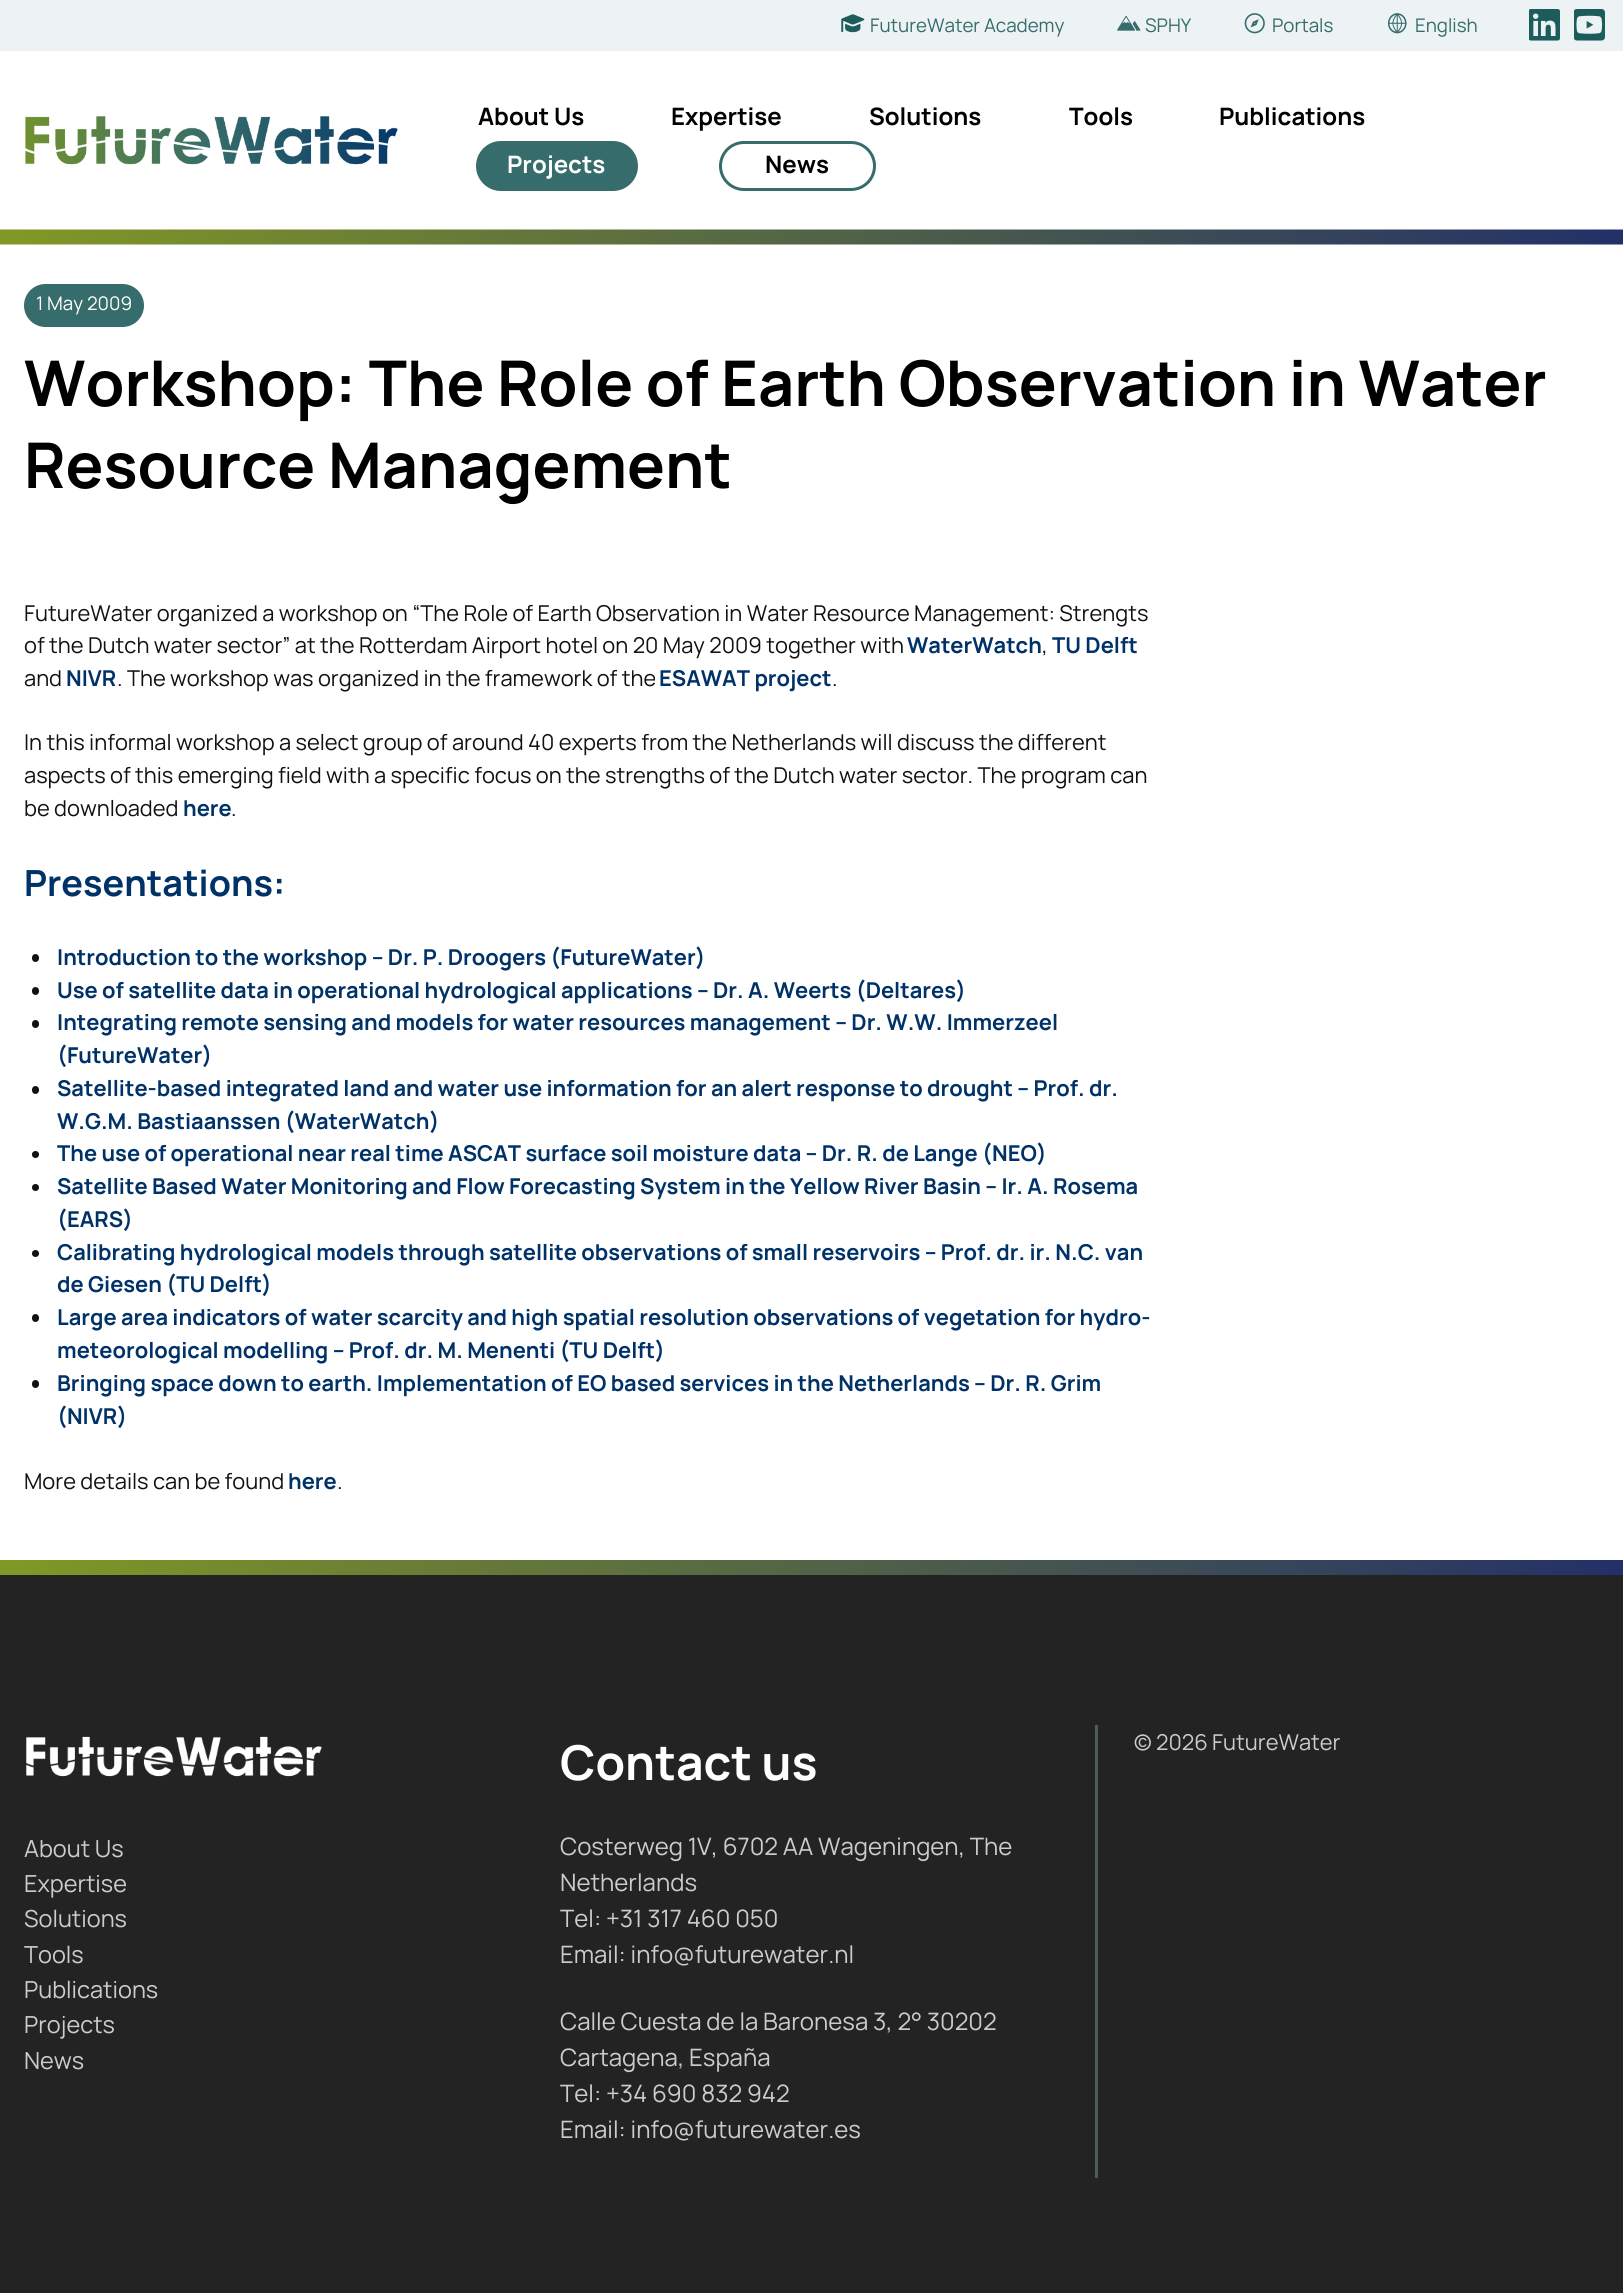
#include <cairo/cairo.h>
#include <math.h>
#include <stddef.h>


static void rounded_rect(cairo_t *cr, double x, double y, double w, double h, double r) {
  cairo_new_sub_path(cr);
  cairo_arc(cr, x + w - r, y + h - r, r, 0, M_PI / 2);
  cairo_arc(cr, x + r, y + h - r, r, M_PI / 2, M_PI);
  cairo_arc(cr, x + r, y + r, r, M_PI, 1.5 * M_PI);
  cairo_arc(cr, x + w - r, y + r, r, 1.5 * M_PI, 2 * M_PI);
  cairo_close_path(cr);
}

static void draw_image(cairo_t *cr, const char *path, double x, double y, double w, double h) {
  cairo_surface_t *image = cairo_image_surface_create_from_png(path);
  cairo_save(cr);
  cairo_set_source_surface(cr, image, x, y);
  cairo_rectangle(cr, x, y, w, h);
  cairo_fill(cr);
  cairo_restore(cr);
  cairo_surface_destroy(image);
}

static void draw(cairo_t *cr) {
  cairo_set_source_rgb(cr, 1, 1, 1);
  cairo_paint(cr);
  draw_image(cr, "images/1.png", 0, 229, 1623, 16);
  cairo_set_source_rgb(cr, 237 / 255.0, 242 / 255.0, 244 / 255.0);
  cairo_rectangle(cr, 0, 0, 1623, 51);
  cairo_fill(cr);
  draw_image(cr, "images/2.png", 841, 14, 24, 19);
  draw_image(cr, "images/3.png", 1117, 15, 24, 16);
  draw_image(cr, "images/4.png", 1244, 13, 21, 21);
  draw_image(cr, "images/5.png", 1387, 13, 20, 21);
  draw_image(cr, "images/6.png", 1529, 9, 31, 32);
  draw_image(cr, "images/7.png", 1574, 9, 31, 32);
  draw_image(cr, "images/8.png", 25, 116, 373, 49);
  cairo_set_source_rgb(cr, 54 / 255.0, 108 / 255.0, 107 / 255.0);
  rounded_rect(cr, 477.5, 142.5, 159, 47, 23.5);
  cairo_fill_preserve(cr);
  cairo_set_line_width(cr, 3);
  cairo_stroke(cr);
  rounded_rect(cr, 720.5, 142.5, 154, 47, 23.5);
  cairo_stroke(cr);
  rounded_rect(cr, 24, 284, 120, 43, 21.5);
  cairo_fill(cr);
  cairo_set_source_rgb(cr, 17 / 255.0, 17 / 255.0, 17 / 255.0);
  rounded_rect(cr, 32, 954, 7, 8, 3.5);
  cairo_fill(cr);
  rounded_rect(cr, 32, 987, 7, 8, 3.5);
  cairo_fill(cr);
  rounded_rect(cr, 32, 1020, 7, 8, 3.5);
  cairo_fill(cr);
  rounded_rect(cr, 32, 1086, 7, 8, 3.5);
  cairo_fill(cr);
  cairo_arc(cr, 35.5, 1154.5, 3.5, 0, 2 * M_PI);
  cairo_fill(cr);
  cairo_arc(cr, 35.5, 1187.5, 3.5, 0, 2 * M_PI);
  cairo_fill(cr);
  cairo_arc(cr, 35.5, 1253.5, 3.5, 0, 2 * M_PI);
  cairo_fill(cr);
  rounded_rect(cr, 32, 1314, 7, 8, 3.5);
  cairo_fill(cr);
  rounded_rect(cr, 32, 1380, 7, 8, 3.5);
  cairo_fill(cr);
  cairo_set_source_rgb(cr, 35 / 255.0, 35 / 255.0, 35 / 255.0);
  cairo_rectangle(cr, 0, 1575, 1623, 718);
  cairo_fill(cr);
  draw_image(cr, "images/9.png", 0, 1560, 1623, 15);
  cairo_set_source_rgb(cr, 72 / 255.0, 95 / 255.0, 94 / 255.0);
  cairo_rectangle(cr, 1095, 1725, 3, 453);
  cairo_fill(cr);
  draw_image(cr, "images/10.png", 26, 1736, 296, 41);
  cairo_select_font_face(cr, "Manrope", CAIRO_FONT_SLANT_NORMAL, CAIRO_FONT_WEIGHT_NORMAL);
  cairo_set_font_size(cr, 18.75);
  cairo_set_source_rgb(cr, 54 / 255.0, 108 / 255.0, 107 / 255.0);
  cairo_move_to(cr, 870, 32);
  cairo_show_text(cr, "FutureWater Academy");
  cairo_move_to(cr, 1145, 32);
  cairo_show_text(cr, "SPHY");
  cairo_move_to(cr, 1272, 32);
  cairo_show_text(cr, "Portals");
  cairo_move_to(cr, 1415, 32);
  cairo_show_text(cr, "English");
  cairo_select_font_face(cr, "Manrope", CAIRO_FONT_SLANT_NORMAL, CAIRO_FONT_WEIGHT_BOLD);
  cairo_set_font_size(cr, 24);
  cairo_set_source_rgb(cr, 0, 0, 0);
  cairo_move_to(cr, 478, 125);
  cairo_show_text(cr, "About Us");
  cairo_move_to(cr, 671, 125);
  cairo_show_text(cr, "Expertise");
  cairo_move_to(cr, 869, 125);
  cairo_show_text(cr, "Solutions");
  cairo_move_to(cr, 1069, 125);
  cairo_show_text(cr, "Tools");
  cairo_move_to(cr, 1219, 125);
  cairo_show_text(cr, "Publications");
  cairo_set_source_rgb(cr, 1, 1, 1);
  cairo_move_to(cr, 507, 173);
  cairo_show_text(cr, "Projects");
  cairo_set_source_rgb(cr, 0, 0, 0);
  cairo_move_to(cr, 765, 173);
  cairo_show_text(cr, "News");
  cairo_select_font_face(cr, "Manrope", CAIRO_FONT_SLANT_NORMAL, CAIRO_FONT_WEIGHT_NORMAL);
  cairo_set_font_size(cr, 18.75);
  cairo_set_source_rgb(cr, 1, 1, 1);
  cairo_move_to(cr, 36, 310);
  cairo_show_text(cr, "1 May 2009");
  cairo_select_font_face(cr, "Manrope", CAIRO_FONT_SLANT_NORMAL, CAIRO_FONT_WEIGHT_BOLD);
  cairo_set_font_size(cr, 63);
  cairo_set_source_rgb(cr, 0, 0, 0);
  cairo_move_to(cr, 24, 406);
  cairo_show_text(cr, "Workshop: The Role of Earth Observation in Water");
  cairo_move_to(cr, 24, 488);
  cairo_show_text(cr, "Resource Management");
  cairo_select_font_face(cr, "Manrope", CAIRO_FONT_SLANT_NORMAL, CAIRO_FONT_WEIGHT_NORMAL);
  cairo_set_font_size(cr, 21.85);
  cairo_set_source_rgb(cr, 17 / 255.0, 17 / 255.0, 17 / 255.0);
  cairo_move_to(cr, 24, 621);
  cairo_show_text(cr, "FutureWater organized a workshop on “The Role of Earth Observation in Water Resource Management: Strengts");
  cairo_move_to(cr, 24, 653);
  cairo_show_text(cr, "of the Dutch water sector” at the Rotterdam Airport hotel on 20 May 2009 together with");
  cairo_select_font_face(cr, "Manrope", CAIRO_FONT_SLANT_NORMAL, CAIRO_FONT_WEIGHT_BOLD);
  cairo_set_source_rgb(cr, 0, 50 / 255.0, 104 / 255.0);
  cairo_move_to(cr, 907, 653);
  cairo_show_text(cr, "WaterWatch");
  cairo_select_font_face(cr, "Manrope", CAIRO_FONT_SLANT_NORMAL, CAIRO_FONT_WEIGHT_NORMAL);
  cairo_set_source_rgb(cr, 17 / 255.0, 17 / 255.0, 17 / 255.0);
  cairo_move_to(cr, 1042, 653);
  cairo_show_text(cr, ",");
  cairo_select_font_face(cr, "Manrope", CAIRO_FONT_SLANT_NORMAL, CAIRO_FONT_WEIGHT_BOLD);
  cairo_set_source_rgb(cr, 0, 50 / 255.0, 104 / 255.0);
  cairo_move_to(cr, 1052, 653);
  cairo_show_text(cr, "TU Delft");
  cairo_select_font_face(cr, "Manrope", CAIRO_FONT_SLANT_NORMAL, CAIRO_FONT_WEIGHT_NORMAL);
  cairo_set_source_rgb(cr, 17 / 255.0, 17 / 255.0, 17 / 255.0);
  cairo_move_to(cr, 24, 686);
  cairo_show_text(cr, "and");
  cairo_select_font_face(cr, "Manrope", CAIRO_FONT_SLANT_NORMAL, CAIRO_FONT_WEIGHT_BOLD);
  cairo_set_source_rgb(cr, 0, 50 / 255.0, 104 / 255.0);
  cairo_move_to(cr, 66, 686);
  cairo_show_text(cr, "NIVR");
  cairo_select_font_face(cr, "Manrope", CAIRO_FONT_SLANT_NORMAL, CAIRO_FONT_WEIGHT_NORMAL);
  cairo_set_source_rgb(cr, 17 / 255.0, 17 / 255.0, 17 / 255.0);
  cairo_move_to(cr, 117, 686);
  cairo_show_text(cr, ". The workshop was organized in the framework of the");
  cairo_select_font_face(cr, "Manrope", CAIRO_FONT_SLANT_NORMAL, CAIRO_FONT_WEIGHT_BOLD);
  cairo_set_source_rgb(cr, 0, 50 / 255.0, 104 / 255.0);
  cairo_move_to(cr, 659, 686);
  cairo_show_text(cr, "ESAWAT project");
  cairo_select_font_face(cr, "Manrope", CAIRO_FONT_SLANT_NORMAL, CAIRO_FONT_WEIGHT_NORMAL);
  cairo_set_source_rgb(cr, 17 / 255.0, 17 / 255.0, 17 / 255.0);
  cairo_move_to(cr, 832, 686);
  cairo_show_text(cr, ".");
  cairo_move_to(cr, 24, 750);
  cairo_show_text(cr, "In this informal workshop a select group of around 40 experts from the Netherlands will discuss the different");
  cairo_move_to(cr, 24, 783);
  cairo_show_text(cr, "aspects of this emerging field with a specific focus on the strengths of the Dutch water sector. The program can");
  cairo_move_to(cr, 24, 816);
  cairo_show_text(cr, "be downloaded");
  cairo_select_font_face(cr, "Manrope", CAIRO_FONT_SLANT_NORMAL, CAIRO_FONT_WEIGHT_BOLD);
  cairo_set_source_rgb(cr, 0, 50 / 255.0, 104 / 255.0);
  cairo_move_to(cr, 183, 816);
  cairo_show_text(cr, "here");
  cairo_select_font_face(cr, "Manrope", CAIRO_FONT_SLANT_NORMAL, CAIRO_FONT_WEIGHT_NORMAL);
  cairo_set_source_rgb(cr, 17 / 255.0, 17 / 255.0, 17 / 255.0);
  cairo_move_to(cr, 231, 816);
  cairo_show_text(cr, ".");
  cairo_select_font_face(cr, "Manrope", CAIRO_FONT_SLANT_NORMAL, CAIRO_FONT_WEIGHT_BOLD);
  cairo_set_font_size(cr, 36);
  cairo_set_source_rgb(cr, 0, 50 / 255.0, 104 / 255.0);
  cairo_move_to(cr, 24, 896);
  cairo_show_text(cr, "Presentations:");
  cairo_set_font_size(cr, 21.85);
  cairo_move_to(cr, 57, 965);
  cairo_show_text(cr, "Introduction to the workshop – Dr. P. Droogers (FutureWater)");
  cairo_move_to(cr, 57, 998);
  cairo_show_text(cr, "Use of satellite data in operational hydrological applications – Dr. A. Weerts (Deltares)");
  cairo_move_to(cr, 57, 1030);
  cairo_show_text(cr, "Integrating remote sensing and models for water resources management – Dr. W.W. Immerzeel");
  cairo_move_to(cr, 57, 1063);
  cairo_show_text(cr, "(FutureWater)");
  cairo_move_to(cr, 57, 1096);
  cairo_show_text(cr, "Satellite-based integrated land and water use information for an alert response to drought – Prof. dr.");
  cairo_move_to(cr, 57, 1129);
  cairo_show_text(cr, "W.G.M. Bastiaanssen (WaterWatch)");
  cairo_move_to(cr, 57, 1161);
  cairo_show_text(cr, "The use of operational near real time ASCAT surface soil moisture data – Dr. R. de Lange (NEO)");
  cairo_move_to(cr, 57, 1194);
  cairo_show_text(cr, "Satellite Based Water Monitoring and Flow Forecasting System in the Yellow River Basin – Ir. A. Rosema");
  cairo_move_to(cr, 57, 1227);
  cairo_show_text(cr, "(EARS)");
  cairo_move_to(cr, 57, 1260);
  cairo_show_text(cr, "Calibrating hydrological models through satellite observations of small reservoirs – Prof. dr. ir. N.C. van");
  cairo_move_to(cr, 57, 1292);
  cairo_show_text(cr, "de Giesen (TU Delft)");
  cairo_move_to(cr, 57, 1325);
  cairo_show_text(cr, "Large area indicators of water scarcity and high spatial resolution observations of vegetation for hydro-");
  cairo_move_to(cr, 57, 1358);
  cairo_show_text(cr, "meteorological modelling – Prof. dr. M. Menenti (TU Delft)");
  cairo_move_to(cr, 57, 1391);
  cairo_show_text(cr, "Bringing space down to earth. Implementation of EO based services in the Netherlands – Dr. R. Grim");
  cairo_move_to(cr, 57, 1424);
  cairo_show_text(cr, "(NIVR)");
  cairo_select_font_face(cr, "Manrope", CAIRO_FONT_SLANT_NORMAL, CAIRO_FONT_WEIGHT_NORMAL);
  cairo_set_source_rgb(cr, 17 / 255.0, 17 / 255.0, 17 / 255.0);
  cairo_move_to(cr, 24, 1489);
  cairo_show_text(cr, "More details can be found");
  cairo_select_font_face(cr, "Manrope", CAIRO_FONT_SLANT_NORMAL, CAIRO_FONT_WEIGHT_BOLD);
  cairo_set_source_rgb(cr, 0, 50 / 255.0, 104 / 255.0);
  cairo_move_to(cr, 288, 1489);
  cairo_show_text(cr, "here");
  cairo_select_font_face(cr, "Manrope", CAIRO_FONT_SLANT_NORMAL, CAIRO_FONT_WEIGHT_NORMAL);
  cairo_set_source_rgb(cr, 17 / 255.0, 17 / 255.0, 17 / 255.0);
  cairo_move_to(cr, 337, 1489);
  cairo_show_text(cr, ".");
  cairo_set_source_rgb(cr, 204 / 255.0, 204 / 255.0, 204 / 255.0);
  cairo_move_to(cr, 1134, 1750);
  cairo_show_text(cr, "© 2026 FutureWater");
  cairo_set_font_size(cr, 23.5);
  cairo_move_to(cr, 24, 1857);
  cairo_show_text(cr, "About Us");
  cairo_move_to(cr, 24, 1892);
  cairo_show_text(cr, "Expertise");
  cairo_move_to(cr, 24, 1927);
  cairo_show_text(cr, "Solutions");
  cairo_move_to(cr, 24, 1963);
  cairo_show_text(cr, "Tools");
  cairo_move_to(cr, 24, 1998);
  cairo_show_text(cr, "Publications");
  cairo_move_to(cr, 24, 2033);
  cairo_show_text(cr, "Projects");
  cairo_move_to(cr, 24, 2069);
  cairo_show_text(cr, "News");
  cairo_select_font_face(cr, "Manrope", CAIRO_FONT_SLANT_NORMAL, CAIRO_FONT_WEIGHT_BOLD);
  cairo_set_font_size(cr, 48);
  cairo_set_source_rgb(cr, 1, 1, 1);
  cairo_move_to(cr, 560, 1780);
  cairo_show_text(cr, "Contact us");
  cairo_select_font_face(cr, "Manrope", CAIRO_FONT_SLANT_NORMAL, CAIRO_FONT_WEIGHT_NORMAL);
  cairo_set_font_size(cr, 24);
  cairo_set_source_rgb(cr, 204 / 255.0, 204 / 255.0, 204 / 255.0);
  cairo_move_to(cr, 560, 1855);
  cairo_show_text(cr, "Costerweg 1V, 6702 AA Wageningen, The");
  cairo_move_to(cr, 560, 1891);
  cairo_show_text(cr, "Netherlands");
  cairo_move_to(cr, 560, 1927);
  cairo_show_text(cr, "Tel: +31 317 460 050");
  cairo_move_to(cr, 560, 1963);
  cairo_show_text(cr, "Email: info@futurewater.nl");
  cairo_move_to(cr, 560, 2030);
  cairo_show_text(cr, "Calle Cuesta de la Baronesa 3, 2° 30202");
  cairo_move_to(cr, 560, 2066);
  cairo_show_text(cr, "Cartagena, España");
  cairo_move_to(cr, 560, 2102);
  cairo_show_text(cr, "Tel: +34 690 832 942");
  cairo_move_to(cr, 560, 2138);
  cairo_show_text(cr, "Email: info@futurewater.es");
}

int main(void) {
  cairo_surface_t *surface = cairo_image_surface_create(CAIRO_FORMAT_RGB24, 1623, 2293);
  cairo_t *cr = cairo_create(surface);
  cairo_font_options_t *options = cairo_font_options_create();
  cairo_font_options_set_hint_metrics(options, CAIRO_HINT_METRICS_OFF);
  cairo_font_options_set_hint_style(options, CAIRO_HINT_STYLE_NONE);
  cairo_set_font_options(cr, options);
  cairo_set_miter_limit(cr, 4);
  draw(cr);
  cairo_surface_write_to_png(surface, "out.png");
  cairo_font_options_destroy(options);
  cairo_destroy(cr);
  cairo_surface_destroy(surface);
  return 0;
}
